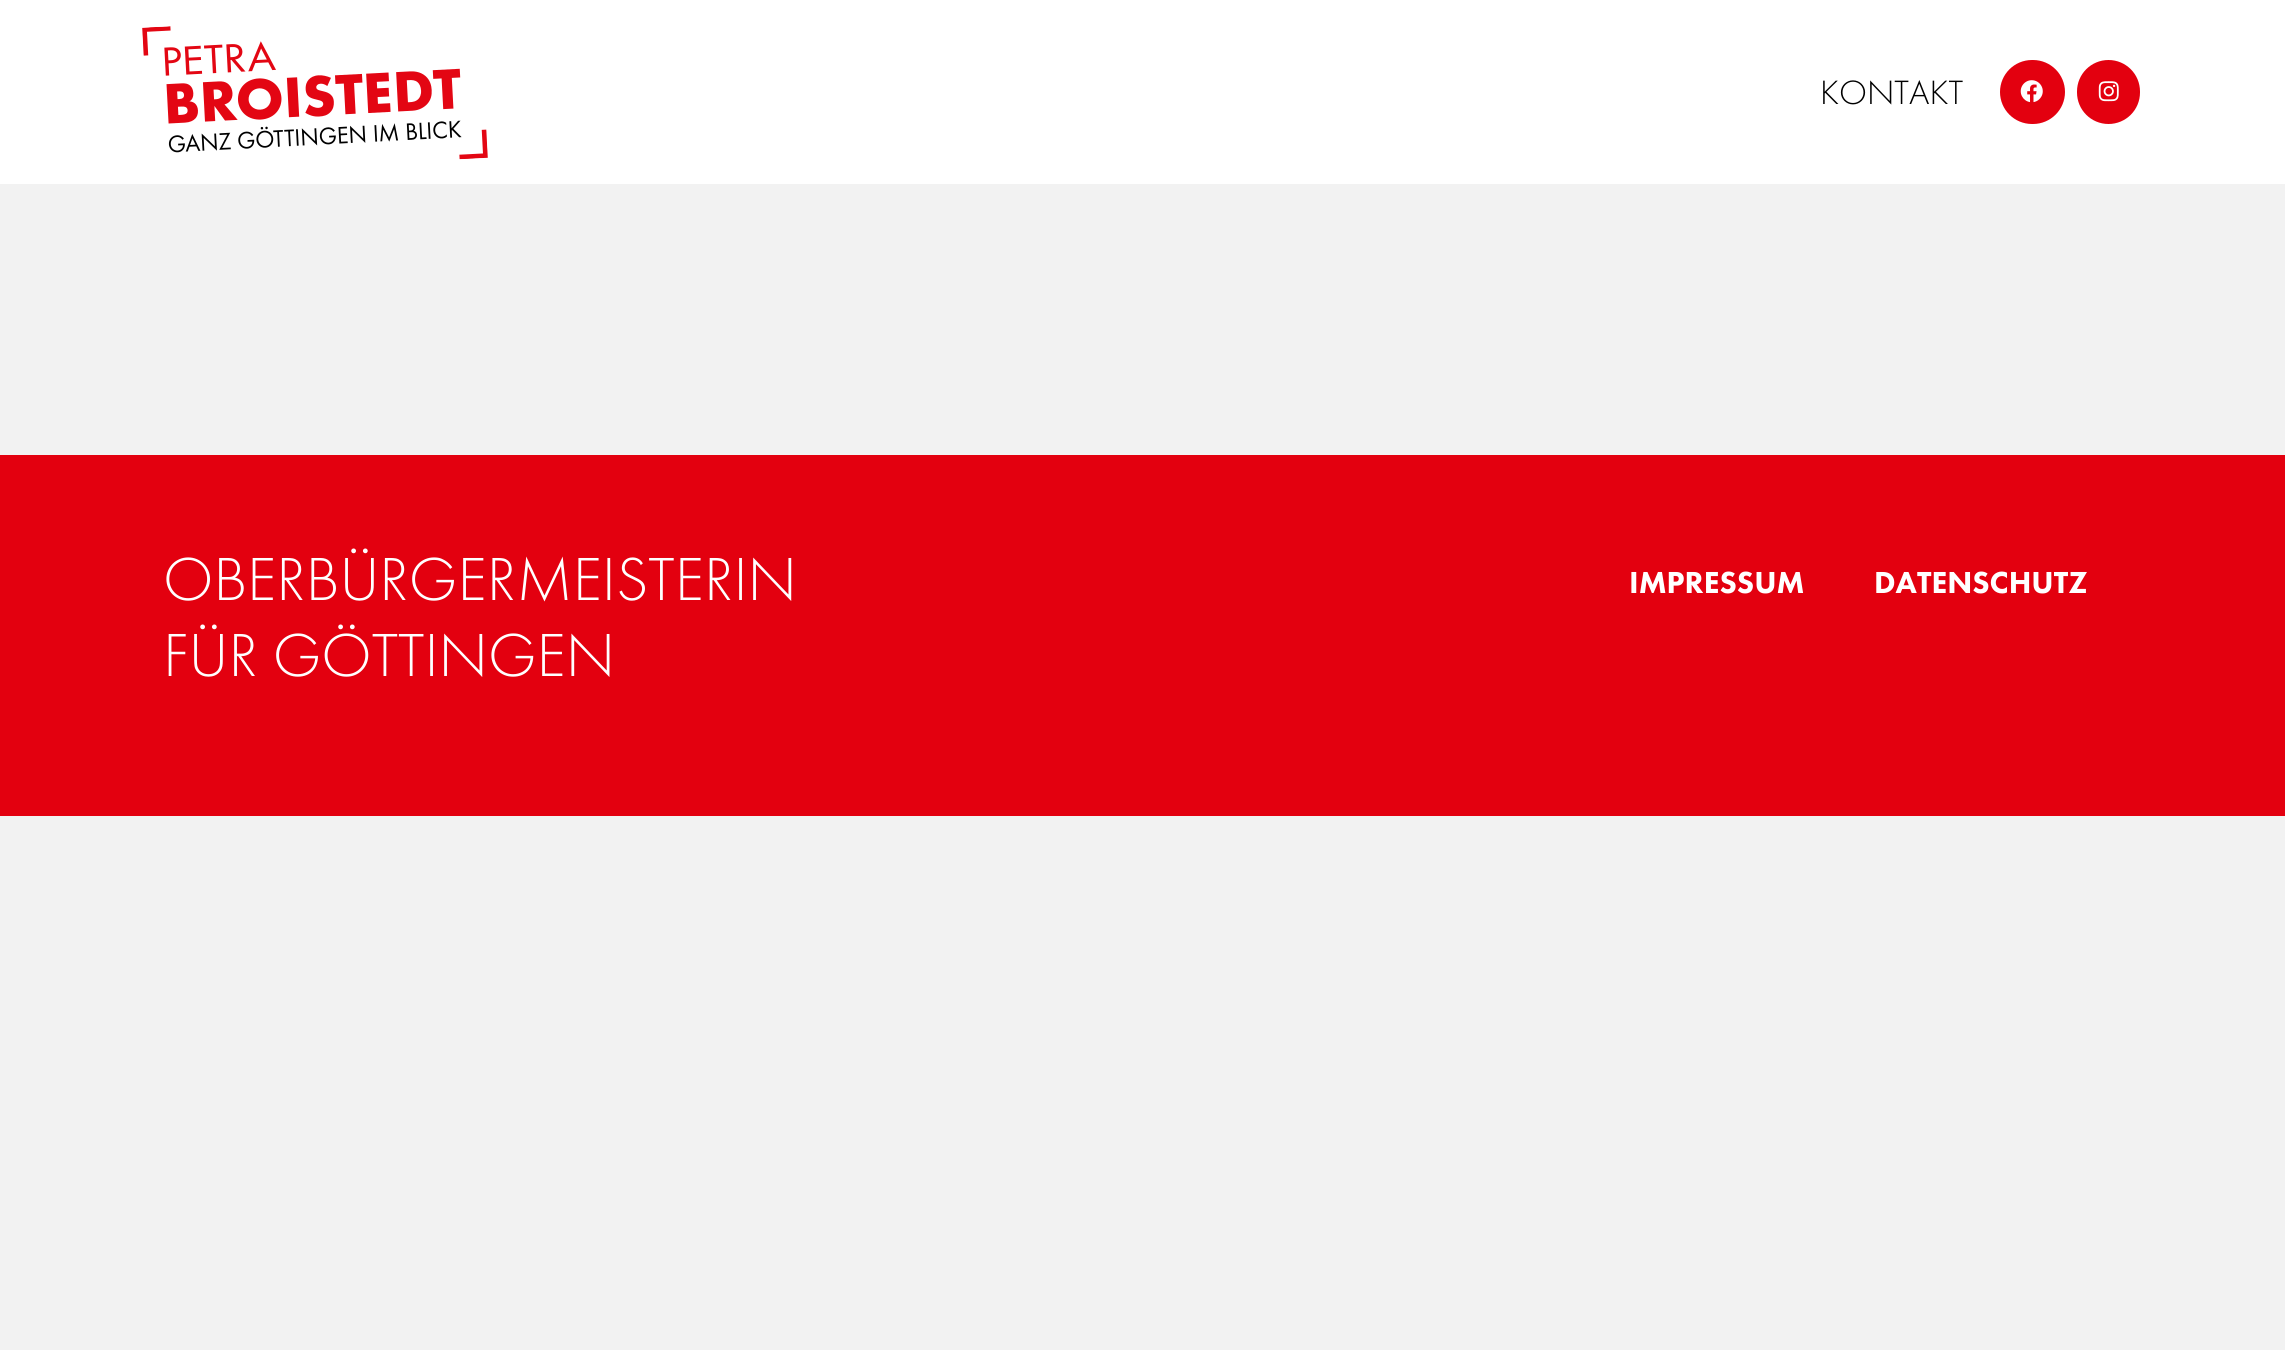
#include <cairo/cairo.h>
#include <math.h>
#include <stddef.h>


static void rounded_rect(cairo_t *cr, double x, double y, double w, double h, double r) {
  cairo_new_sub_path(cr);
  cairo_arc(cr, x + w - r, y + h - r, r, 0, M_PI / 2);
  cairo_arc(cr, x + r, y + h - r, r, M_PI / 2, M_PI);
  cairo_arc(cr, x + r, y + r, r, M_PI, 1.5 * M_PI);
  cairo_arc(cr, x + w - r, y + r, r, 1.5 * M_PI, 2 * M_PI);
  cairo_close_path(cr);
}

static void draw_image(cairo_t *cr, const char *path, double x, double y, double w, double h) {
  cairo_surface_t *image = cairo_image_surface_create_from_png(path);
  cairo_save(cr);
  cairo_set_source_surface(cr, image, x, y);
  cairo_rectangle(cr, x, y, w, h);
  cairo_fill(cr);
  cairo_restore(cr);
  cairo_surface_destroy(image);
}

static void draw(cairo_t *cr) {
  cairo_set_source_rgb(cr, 242 / 255.0, 242 / 255.0, 242 / 255.0);
  cairo_paint(cr);
  cairo_set_source_rgb(cr, 1, 1, 1);
  cairo_rectangle(cr, 0, 0, 2285, 184);
  cairo_fill(cr);
  draw_image(cr, "images/1.png", 142, 26, 346, 134);
  cairo_set_source_rgb(cr, 227 / 255.0, 0, 15 / 255.0);
  rounded_rect(cr, 2000, 60, 65, 64, 32);
  cairo_fill(cr);
  draw_image(cr, "images/2.png", 2020, 80, 23, 23);
  rounded_rect(cr, 2077, 60, 63, 64, 31.5);
  cairo_fill(cr);
  draw_image(cr, "images/3.png", 2098, 81, 21, 21);
  cairo_rectangle(cr, 0, 455, 2285, 361);
  cairo_fill(cr);
  cairo_select_font_face(cr, "Futura PT Light", CAIRO_FONT_SLANT_NORMAL, CAIRO_FONT_WEIGHT_NORMAL);
  cairo_set_font_size(cr, 35);
  cairo_set_source_rgb(cr, 0, 0, 0);
  cairo_move_to(cr, 1820, 104);
  cairo_show_text(cr, "KONTAKT");
  cairo_set_font_size(cr, 63);
  cairo_set_source_rgb(cr, 1, 1, 1);
  cairo_move_to(cr, 163, 600);
  cairo_show_text(cr, "OBERBÜRGERMEISTERIN");
  cairo_move_to(cr, 163, 676);
  cairo_show_text(cr, "FÜR GÖTTINGEN");
  cairo_select_font_face(cr, "Futura PT Black", CAIRO_FONT_SLANT_NORMAL, CAIRO_FONT_WEIGHT_NORMAL);
  cairo_set_font_size(cr, 31.5);
  cairo_move_to(cr, 1629, 593);
  cairo_show_text(cr, "IMPRESSUM");
  cairo_move_to(cr, 1874, 593);
  cairo_show_text(cr, "DATENSCHUTZ");
}

int main(void) {
  cairo_surface_t *surface = cairo_image_surface_create(CAIRO_FORMAT_RGB24, 2285, 1350);
  cairo_t *cr = cairo_create(surface);
  cairo_font_options_t *options = cairo_font_options_create();
  cairo_font_options_set_hint_metrics(options, CAIRO_HINT_METRICS_OFF);
  cairo_font_options_set_hint_style(options, CAIRO_HINT_STYLE_NONE);
  cairo_set_font_options(cr, options);
  cairo_set_miter_limit(cr, 4);
  draw(cr);
  cairo_surface_write_to_png(surface, "out.png");
  cairo_font_options_destroy(options);
  cairo_destroy(cr);
  cairo_surface_destroy(surface);
  return 0;
}
